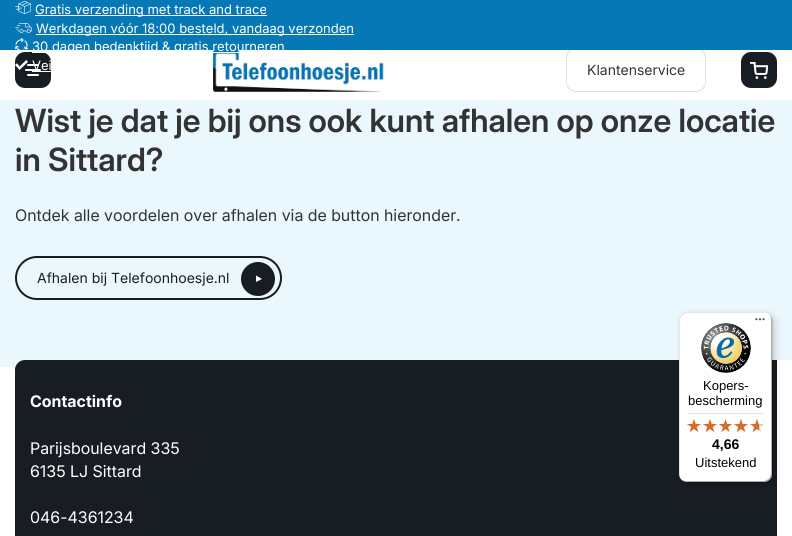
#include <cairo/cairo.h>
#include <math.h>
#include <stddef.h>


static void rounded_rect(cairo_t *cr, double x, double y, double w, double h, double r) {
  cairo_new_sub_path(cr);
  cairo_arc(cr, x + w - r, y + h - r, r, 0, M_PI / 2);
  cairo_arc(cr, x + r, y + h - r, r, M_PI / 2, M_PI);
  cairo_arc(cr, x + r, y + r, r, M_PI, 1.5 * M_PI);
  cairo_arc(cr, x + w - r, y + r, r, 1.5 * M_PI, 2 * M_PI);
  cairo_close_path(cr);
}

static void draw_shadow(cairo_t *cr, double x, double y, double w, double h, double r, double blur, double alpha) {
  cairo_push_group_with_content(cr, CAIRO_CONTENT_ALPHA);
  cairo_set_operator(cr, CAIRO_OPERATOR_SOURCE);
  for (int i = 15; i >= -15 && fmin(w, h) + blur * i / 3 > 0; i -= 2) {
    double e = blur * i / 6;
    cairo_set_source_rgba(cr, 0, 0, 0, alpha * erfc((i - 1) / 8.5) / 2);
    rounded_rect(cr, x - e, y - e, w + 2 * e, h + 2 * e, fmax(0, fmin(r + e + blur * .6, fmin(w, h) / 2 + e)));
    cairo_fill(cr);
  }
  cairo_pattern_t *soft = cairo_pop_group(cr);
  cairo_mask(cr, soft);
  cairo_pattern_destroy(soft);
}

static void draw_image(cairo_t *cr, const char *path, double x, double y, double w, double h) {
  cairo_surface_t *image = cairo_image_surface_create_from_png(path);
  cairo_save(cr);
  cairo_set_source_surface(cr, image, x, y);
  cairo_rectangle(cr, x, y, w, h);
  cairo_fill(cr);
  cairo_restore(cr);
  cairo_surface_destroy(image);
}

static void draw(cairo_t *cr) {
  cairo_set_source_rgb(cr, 1, 1, 1);
  cairo_paint(cr);
  cairo_set_source_rgb(cr, 234 / 255.0, 247 / 255.0, 253 / 255.0);
  cairo_new_path(cr);
  cairo_move_to(cr, 0, 62);
  cairo_line_to(cr, 792, 48);
  cairo_line_to(cr, 792, 353);
  cairo_line_to(cr, 0, 367);
  cairo_close_path(cr);
  cairo_fill(cr);
  cairo_set_source_rgb(cr, 1, 1, 1);
  cairo_rectangle(cr, 0, 50, 792, 50);
  cairo_fill(cr);
  rounded_rect(cr, 566.5, 48.5, 139, 43, 9.5);
  cairo_set_source_rgb(cr, 222 / 255.0, 222 / 255.0, 222 / 255.0);
  cairo_set_line_width(cr, 1);
  cairo_stroke(cr);
  cairo_set_source_rgb(cr, 5 / 255.0, 120 / 255.0, 181 / 255.0);
  cairo_rectangle(cr, 0, 0, 792, 50);
  cairo_fill(cr);
  draw_image(cr, "images/1.png", 15, 1, 16, 13);
  cairo_set_source_rgb(cr, 1, 1, 1);
  cairo_rectangle(cr, 35, 15, 232, 1);
  cairo_fill(cr);
  draw_image(cr, "images/2.png", 15, 23, 17, 10);
  cairo_rectangle(cr, 36, 34, 318, 1);
  cairo_fill(cr);
  draw_image(cr, "images/3.png", 15, 38, 13, 12);
  cairo_set_source_rgb(cr, 24 / 255.0, 29 / 255.0, 36 / 255.0);
  rounded_rect(cr, 15, 52, 36, 36, 10);
  cairo_fill(cr);
  draw_image(cr, "images/6.png", 213, 50, 171, 42);
  cairo_set_source_rgb(cr, 1, 1, 1);
  cairo_rectangle(cr, 32, 52, 208, 1);
  cairo_fill(cr);
  draw_image(cr, "images/5.png", 25, 64, 16, 12);
  draw_image(cr, "images/4.png", 15, 60, 13, 10);
  cairo_rectangle(cr, 32, 71, 19, 1);
  cairo_fill(cr);
  cairo_set_source_rgb(cr, 24 / 255.0, 29 / 255.0, 36 / 255.0);
  rounded_rect(cr, 741, 52, 36, 36, 10);
  cairo_fill(cr);
  draw_image(cr, "images/7.png", 750, 62, 18, 17);
  cairo_new_path(cr);
  cairo_move_to(cr, 25, 361);
  cairo_line_to(cr, 767, 309);
  cairo_curve_to(cr, 773, 309, 777, 313, 777, 318);
  cairo_line_to(cr, 777, 408);
  cairo_line_to(cr, 15, 462);
  cairo_line_to(cr, 15, 372);
  cairo_curve_to(cr, 15, 366, 19, 361, 25, 361);
  cairo_close_path(cr);
  cairo_fill(cr);
  cairo_set_source_rgb(cr, 234 / 255.0, 247 / 255.0, 253 / 255.0);
  cairo_rectangle(cr, 40, 309, 752, 51);
  cairo_fill(cr);
  cairo_set_source_rgb(cr, 24 / 255.0, 29 / 255.0, 36 / 255.0);
  cairo_arc(cr, 258, 279, 17, 0, 2 * M_PI);
  cairo_fill(cr);
  cairo_set_source_rgb(cr, 1, 1, 1);
  cairo_new_path(cr);
  cairo_move_to(cr, 262, 279);
  cairo_line_to(cr, 256, 282);
  cairo_line_to(cr, 256, 275.5);
  cairo_close_path(cr);
  cairo_fill(cr);
  rounded_rect(cr, 16, 257, 265, 42, 21);
  cairo_set_source_rgb(cr, 24 / 255.0, 29 / 255.0, 36 / 255.0);
  cairo_set_line_width(cr, 2);
  cairo_stroke(cr);
  rounded_rect(cr, 15, 360, 762, 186, 10);
  cairo_fill(cr);
  cairo_set_source_rgb(cr, 0, 0, 0);
  draw_shadow(cr, 682, 315, 93, 170, 8, 4, 0.15);
  draw_shadow(cr, 680, 313, 93, 170, 8, 1, 0.15);
  cairo_set_source_rgb(cr, 1, 1, 1);
  rounded_rect(cr, 679, 312, 93, 170, 8);
  cairo_fill(cr);
  cairo_set_source_rgba(cr, 0, 0, 0, 0.1);
  cairo_new_path(cr);
  cairo_move_to(cr, 688, 313);
  cairo_line_to(cr, 765, 313);
  cairo_curve_to(cr, 767, 313, 769, 314, 771, 316);
  cairo_curve_to(cr, 769, 314, 767, 312, 764, 312);
  cairo_line_to(cr, 687, 312);
  cairo_curve_to(cr, 683, 312, 679, 316, 679, 320);
  cairo_line_to(cr, 679, 474);
  cairo_curve_to(cr, 679, 477, 681, 479, 683, 481);
  cairo_curve_to(cr, 681, 479, 680, 477, 680, 475);
  cairo_line_to(cr, 680, 321);
  cairo_curve_to(cr, 680, 317, 684, 313, 688, 313);
  cairo_close_path(cr);
  cairo_fill(cr);
  cairo_set_source_rgba(cr, 0, 0, 0, 0.2);
  cairo_new_path(cr);
  cairo_move_to(cr, 680, 478);
  cairo_curve_to(cr, 682, 480, 684, 482, 687, 482);
  cairo_line_to(cr, 764, 482);
  cairo_curve_to(cr, 768, 482, 772, 478, 772, 474);
  cairo_line_to(cr, 772, 320);
  cairo_curve_to(cr, 772, 317, 770, 315, 768, 313);
  cairo_curve_to(cr, 770, 315, 771, 317, 771, 319);
  cairo_line_to(cr, 771, 473);
  cairo_curve_to(cr, 771, 477, 767, 481, 763, 481);
  cairo_line_to(cr, 686, 481);
  cairo_curve_to(cr, 684, 481, 682, 480, 680, 478);
  cairo_close_path(cr);
  cairo_fill(cr);
  cairo_set_source_rgba(cr, 50 / 255.0, 50 / 255.0, 50 / 255.0, 0.2);
  cairo_new_path(cr);
  cairo_move_to(cr, 681, 479);
  cairo_curve_to(cr, 682, 481, 685, 482, 687, 482);
  cairo_line_to(cr, 764, 482);
  cairo_curve_to(cr, 768, 482, 772, 478, 772, 474);
  cairo_line_to(cr, 772, 320);
  cairo_curve_to(cr, 772, 318, 771, 315, 769, 314);
  cairo_curve_to(cr, 770, 315, 771, 317, 771, 319);
  cairo_line_to(cr, 771, 473);
  cairo_curve_to(cr, 771, 478, 768, 481, 763, 481);
  cairo_line_to(cr, 686, 481);
  cairo_curve_to(cr, 684, 481, 682, 480, 681, 479);
  cairo_close_path(cr);
  cairo_fill(cr);
  draw_image(cr, "images/8.png", 755, 318, 10, 3);
  cairo_set_source_rgba(cr, 1, 1, 1, 0.3);
  cairo_new_path(cr);
  cairo_move_to(cr, 764, 482);
  cairo_curve_to(cr, 768.5, 482, 772, 478.5, 772, 474);
  cairo_curve_to(cr, 772, 478, 768, 482, 764, 482);
  cairo_close_path(cr);
  cairo_fill(cr);
  draw_image(cr, "images/9.png", 701, 323, 50, 50);
  cairo_set_source_rgb(cr, 229 / 255.0, 229 / 255.0, 229 / 255.0);
  cairo_rectangle(cr, 687, 413, 77, 1);
  cairo_fill(cr);
  draw_image(cr, "images/10.png", 687, 419, 14, 13);
  draw_image(cr, "images/10.png", 703, 419, 14, 13);
  draw_image(cr, "images/11.png", 719, 419, 13, 13);
  draw_image(cr, "images/10.png", 734, 419, 14, 13);
  draw_image(cr, "images/10.png", 750, 419, 14, 13);
  draw_image(cr, "images/12.png", 687, 419, 14, 13);
  draw_image(cr, "images/12.png", 703, 419, 14, 13);
  draw_image(cr, "images/13.png", 719, 419, 13, 13);
  draw_image(cr, "images/12.png", 734, 419, 14, 13);
  draw_image(cr, "images/14.png", 750, 419, 9, 13);
  cairo_select_font_face(cr, "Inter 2", CAIRO_FONT_SLANT_NORMAL, CAIRO_FONT_WEIGHT_NORMAL);
  cairo_set_font_size(cr, 13);
  cairo_set_source_rgb(cr, 1, 1, 1);
  cairo_move_to(cr, 35, 14);
  cairo_show_text(cr, "Gratis verzending met track and trace");
  cairo_move_to(cr, 36, 33);
  cairo_show_text(cr, "Werkdagen vóór 18:00 besteld, vandaag verzonden");
  cairo_move_to(cr, 32, 51);
  cairo_show_text(cr, "30 dagen bedenktijd & gratis retourneren");
  cairo_move_to(cr, 32, 70);
  cairo_show_text(cr, "Vei");
  cairo_set_font_size(cr, 14);
  cairo_set_source_rgb(cr, 51 / 255.0, 51 / 255.0, 51 / 255.0);
  cairo_move_to(cr, 587, 75);
  cairo_show_text(cr, "Klantenservice");
  cairo_select_font_face(cr, "Inter SemiBold", CAIRO_FONT_SLANT_NORMAL, CAIRO_FONT_WEIGHT_NORMAL);
  cairo_set_font_size(cr, 32);
  cairo_move_to(cr, 15, 132);
  cairo_show_text(cr, "Wist je dat je bij ons ook kunt afhalen op onze locatie");
  cairo_move_to(cr, 15, 171);
  cairo_show_text(cr, "in Sittard?");
  cairo_select_font_face(cr, "Inter", CAIRO_FONT_SLANT_NORMAL, CAIRO_FONT_WEIGHT_NORMAL);
  cairo_set_font_size(cr, 16);
  cairo_move_to(cr, 15, 221);
  cairo_show_text(cr, "Ontdek alle voordelen over afhalen via de button hieronder.");
  cairo_select_font_face(cr, "Inter 2", CAIRO_FONT_SLANT_NORMAL, CAIRO_FONT_WEIGHT_NORMAL);
  cairo_set_font_size(cr, 14);
  cairo_set_source_rgb(cr, 24 / 255.0, 29 / 255.0, 36 / 255.0);
  cairo_move_to(cr, 37, 283);
  cairo_show_text(cr, "Afhalen bij Telefoonhoesje.nl");
  cairo_select_font_face(cr, "Inter", CAIRO_FONT_SLANT_NORMAL, CAIRO_FONT_WEIGHT_BOLD);
  cairo_set_font_size(cr, 16);
  cairo_set_source_rgb(cr, 1, 1, 1);
  cairo_move_to(cr, 30, 407);
  cairo_show_text(cr, "Contactinfo");
  cairo_select_font_face(cr, "Inter", CAIRO_FONT_SLANT_NORMAL, CAIRO_FONT_WEIGHT_NORMAL);
  cairo_move_to(cr, 30, 454);
  cairo_show_text(cr, "Parijsboulevard 335");
  cairo_move_to(cr, 30, 477);
  cairo_show_text(cr, "6135 LJ Sittard");
  cairo_move_to(cr, 30, 523);
  cairo_show_text(cr, "046-4361234");
  cairo_select_font_face(cr, "Liberation Sans", CAIRO_FONT_SLANT_NORMAL, CAIRO_FONT_WEIGHT_NORMAL);
  cairo_set_font_size(cr, 13);
  cairo_set_source_rgb(cr, 0, 0, 0);
  cairo_move_to(cr, 703, 390);
  cairo_show_text(cr, "Kopers-");
  cairo_move_to(cr, 688, 405);
  cairo_show_text(cr, "bescherming");
  cairo_select_font_face(cr, "Liberation Sans", CAIRO_FONT_SLANT_NORMAL, CAIRO_FONT_WEIGHT_BOLD);
  cairo_set_font_size(cr, 14);
  cairo_move_to(cr, 712, 449);
  cairo_show_text(cr, "4,66");
  cairo_select_font_face(cr, "Liberation Sans", CAIRO_FONT_SLANT_NORMAL, CAIRO_FONT_WEIGHT_NORMAL);
  cairo_set_font_size(cr, 13);
  cairo_move_to(cr, 695, 467);
  cairo_show_text(cr, "Uitstekend");
}

int main(void) {
  cairo_surface_t *surface = cairo_image_surface_create(CAIRO_FORMAT_RGB24, 792, 536);
  cairo_t *cr = cairo_create(surface);
  cairo_font_options_t *options = cairo_font_options_create();
  cairo_font_options_set_hint_metrics(options, CAIRO_HINT_METRICS_OFF);
  cairo_font_options_set_hint_style(options, CAIRO_HINT_STYLE_NONE);
  cairo_set_font_options(cr, options);
  cairo_set_miter_limit(cr, 4);
  draw(cr);
  cairo_surface_write_to_png(surface, "out.png");
  cairo_font_options_destroy(options);
  cairo_destroy(cr);
  cairo_surface_destroy(surface);
  return 0;
}
